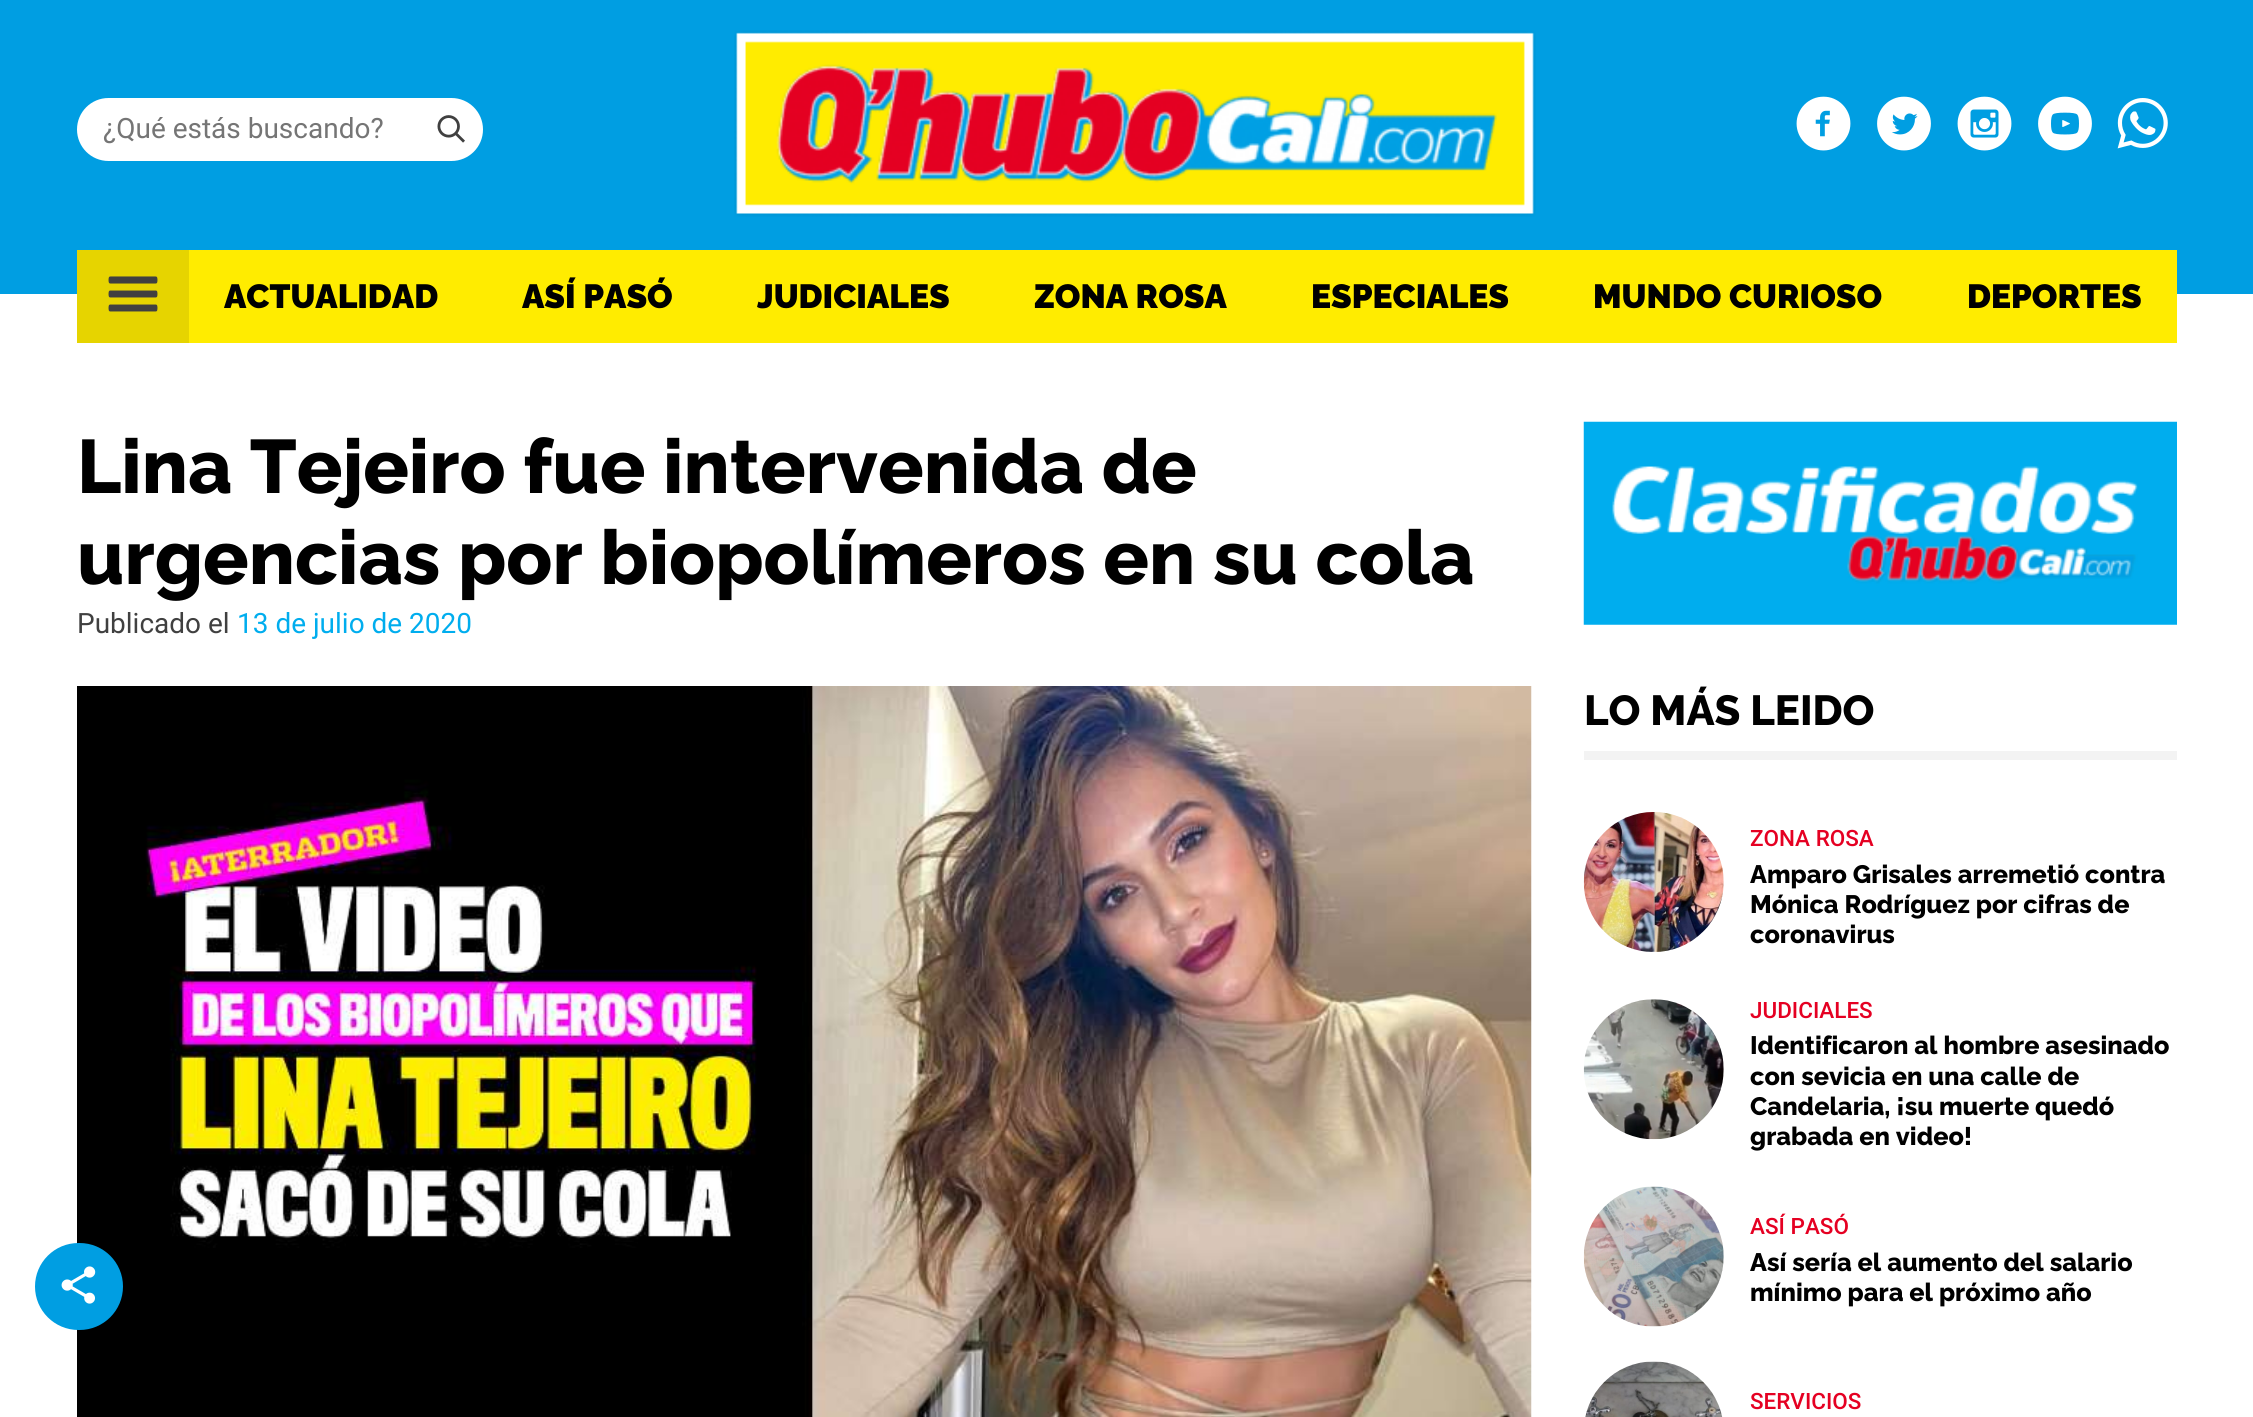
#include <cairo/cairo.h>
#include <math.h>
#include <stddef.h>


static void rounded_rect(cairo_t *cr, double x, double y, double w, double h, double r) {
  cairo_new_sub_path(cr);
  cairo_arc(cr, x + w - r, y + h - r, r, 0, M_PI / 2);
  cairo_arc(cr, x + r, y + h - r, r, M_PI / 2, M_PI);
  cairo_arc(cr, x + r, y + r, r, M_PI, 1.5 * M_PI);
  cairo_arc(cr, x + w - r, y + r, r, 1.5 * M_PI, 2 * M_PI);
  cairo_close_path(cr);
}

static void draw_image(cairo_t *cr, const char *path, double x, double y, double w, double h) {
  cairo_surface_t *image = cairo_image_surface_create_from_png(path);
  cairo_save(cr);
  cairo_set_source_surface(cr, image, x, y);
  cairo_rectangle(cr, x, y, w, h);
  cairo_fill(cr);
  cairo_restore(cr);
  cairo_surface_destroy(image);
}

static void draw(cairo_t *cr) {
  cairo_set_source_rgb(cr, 1, 1, 1);
  cairo_paint(cr);
  cairo_set_source_rgb(cr, 0, 158 / 255.0, 226 / 255.0);
  cairo_rectangle(cr, 0, 0, 2253, 294);
  cairo_fill(cr);
  cairo_set_source_rgb(cr, 1, 1, 1);
  rounded_rect(cr, 77, 98, 406, 63, 31.5);
  cairo_fill(cr);
  draw_image(cr, "images/1.png", 437, 115, 28, 28);
  draw_image(cr, "images/2.png", 734, 30, 802, 187);
  draw_image(cr, "images/3.png", 1796, 96, 55, 55);
  draw_image(cr, "images/4.png", 1877, 96, 54, 55);
  draw_image(cr, "images/5.png", 1957, 96, 55, 55);
  draw_image(cr, "images/6.png", 2038, 96, 54, 55);
  draw_image(cr, "images/7.png", 2117, 98, 51, 51);
  cairo_set_source_rgb(cr, 1, 236 / 255.0, 0);
  cairo_rectangle(cr, 189, 250, 1988, 93);
  cairo_fill(cr);
  cairo_set_source_rgb(cr, 230 / 255.0, 212 / 255.0, 0);
  cairo_rectangle(cr, 77, 250, 112, 93);
  cairo_fill(cr);
  draw_image(cr, "images/8.png", 108, 276, 50, 36);
  draw_image(cr, "images/9.png", 77, 686, 1455, 731);
  draw_image(cr, "images/10.png", 1583, 421, 594, 204);
  cairo_set_source_rgb(cr, 243 / 255.0, 243 / 255.0, 243 / 255.0);
  cairo_rectangle(cr, 1584, 751, 593, 9);
  cairo_fill(cr);
  draw_image(cr, "images/11.png", 1583, 812, 141, 140);
  draw_image(cr, "images/12.png", 1583, 999, 141, 141);
  draw_image(cr, "images/13.png", 1583, 1186, 141, 141);
  draw_image(cr, "images/14.png", 1585, 1361, 138, 56);
  cairo_set_source_rgb(cr, 0, 158 / 255.0, 226 / 255.0);
  rounded_rect(cr, 35, 1243, 88, 87, 43.5);
  cairo_fill(cr);
  draw_image(cr, "images/15.png", 61, 1266, 35, 38);
  cairo_select_font_face(cr, "Roboto", CAIRO_FONT_SLANT_NORMAL, CAIRO_FONT_WEIGHT_NORMAL);
  cairo_set_font_size(cr, 28);
  cairo_set_source_rgb(cr, 117 / 255.0, 117 / 255.0, 117 / 255.0);
  cairo_move_to(cr, 103, 138);
  cairo_show_text(cr, "¿Qué estás buscando?");
  cairo_select_font_face(cr, "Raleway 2 Thin", CAIRO_FONT_SLANT_NORMAL, CAIRO_FONT_WEIGHT_NORMAL);
  cairo_set_font_size(cr, 33.5);
  cairo_set_source_rgb(cr, 0, 0, 0);
  cairo_move_to(cr, 224, 308);
  cairo_show_text(cr, "ACTUALIDAD");
  cairo_move_to(cr, 522, 308);
  cairo_show_text(cr, "ASÍ PASÓ");
  cairo_move_to(cr, 757, 308);
  cairo_show_text(cr, "JUDICIALES");
  cairo_move_to(cr, 1034, 308);
  cairo_show_text(cr, "ZONA ROSA");
  cairo_move_to(cr, 1311, 308);
  cairo_show_text(cr, "ESPECIALES");
  cairo_move_to(cr, 1593, 308);
  cairo_show_text(cr, "MUNDO CURIOSO");
  cairo_move_to(cr, 1967, 308);
  cairo_show_text(cr, "DEPORTES");
  cairo_select_font_face(cr, "Raleway Thin", CAIRO_FONT_SLANT_NORMAL, CAIRO_FONT_WEIGHT_NORMAL);
  cairo_set_font_size(cr, 75.6);
  cairo_move_to(cr, 77, 493);
  cairo_show_text(cr, "Lina Tejeiro fue intervenida de");
  cairo_move_to(cr, 77, 584);
  cairo_show_text(cr, "urgencias por biopolímeros en su cola");
  cairo_select_font_face(cr, "Roboto", CAIRO_FONT_SLANT_NORMAL, CAIRO_FONT_WEIGHT_NORMAL);
  cairo_set_font_size(cr, 28);
  cairo_set_source_rgb(cr, 64 / 255.0, 64 / 255.0, 64 / 255.0);
  cairo_move_to(cr, 77, 633);
  cairo_show_text(cr, "Publicado el");
  cairo_set_source_rgb(cr, 0, 173 / 255.0, 238 / 255.0);
  cairo_move_to(cr, 237, 633);
  cairo_show_text(cr, "13 de julio de 2020");
  cairo_select_font_face(cr, "Raleway Thin", CAIRO_FONT_SLANT_NORMAL, CAIRO_FONT_WEIGHT_NORMAL);
  cairo_set_font_size(cr, 42);
  cairo_set_source_rgb(cr, 0, 0, 0);
  cairo_move_to(cr, 1584, 725);
  cairo_show_text(cr, "LO MÁS LEIDO");
  cairo_select_font_face(cr, "Roboto Medium", CAIRO_FONT_SLANT_NORMAL, CAIRO_FONT_WEIGHT_NORMAL);
  cairo_set_font_size(cr, 22.5);
  cairo_set_source_rgb(cr, 229 / 255.0, 0, 34 / 255.0);
  cairo_move_to(cr, 1750, 846);
  cairo_show_text(cr, "ZONA ROSA");
  cairo_select_font_face(cr, "Raleway Thin", CAIRO_FONT_SLANT_NORMAL, CAIRO_FONT_WEIGHT_NORMAL);
  cairo_set_font_size(cr, 25.25);
  cairo_set_source_rgb(cr, 0, 0, 0);
  cairo_move_to(cr, 1750, 883);
  cairo_show_text(cr, "Amparo Grisales arremetió contra");
  cairo_move_to(cr, 1750, 913);
  cairo_show_text(cr, "Mónica Rodríguez por cifras de");
  cairo_move_to(cr, 1750, 943);
  cairo_show_text(cr, "coronavirus");
  cairo_select_font_face(cr, "Roboto Medium", CAIRO_FONT_SLANT_NORMAL, CAIRO_FONT_WEIGHT_NORMAL);
  cairo_set_font_size(cr, 22.5);
  cairo_set_source_rgb(cr, 229 / 255.0, 0, 34 / 255.0);
  cairo_move_to(cr, 1750, 1018);
  cairo_show_text(cr, "JUDICIALES");
  cairo_select_font_face(cr, "Raleway Thin", CAIRO_FONT_SLANT_NORMAL, CAIRO_FONT_WEIGHT_NORMAL);
  cairo_set_font_size(cr, 25.25);
  cairo_set_source_rgb(cr, 0, 0, 0);
  cairo_move_to(cr, 1750, 1054);
  cairo_show_text(cr, "Identificaron al hombre asesinado");
  cairo_move_to(cr, 1750, 1085);
  cairo_show_text(cr, "con sevicia en una calle de");
  cairo_move_to(cr, 1750, 1115);
  cairo_show_text(cr, "Candelaria, ¡su muerte quedó");
  cairo_move_to(cr, 1750, 1145);
  cairo_show_text(cr, "grabada en video!");
  cairo_select_font_face(cr, "Roboto Medium", CAIRO_FONT_SLANT_NORMAL, CAIRO_FONT_WEIGHT_NORMAL);
  cairo_set_font_size(cr, 22.5);
  cairo_set_source_rgb(cr, 229 / 255.0, 0, 34 / 255.0);
  cairo_move_to(cr, 1750, 1234);
  cairo_show_text(cr, "ASÍ PASÓ");
  cairo_select_font_face(cr, "Raleway Thin", CAIRO_FONT_SLANT_NORMAL, CAIRO_FONT_WEIGHT_NORMAL);
  cairo_set_font_size(cr, 25.25);
  cairo_set_source_rgb(cr, 0, 0, 0);
  cairo_move_to(cr, 1750, 1271);
  cairo_show_text(cr, "Así sería el aumento del salario");
  cairo_move_to(cr, 1750, 1301);
  cairo_show_text(cr, "mínimo para el próximo año");
  cairo_select_font_face(cr, "Roboto Medium", CAIRO_FONT_SLANT_NORMAL, CAIRO_FONT_WEIGHT_NORMAL);
  cairo_set_font_size(cr, 22.5);
  cairo_set_source_rgb(cr, 229 / 255.0, 0, 34 / 255.0);
  cairo_move_to(cr, 1750, 1409);
  cairo_show_text(cr, "SERVICIOS");
}

int main(void) {
  cairo_surface_t *surface = cairo_image_surface_create(CAIRO_FORMAT_RGB24, 2253, 1417);
  cairo_t *cr = cairo_create(surface);
  cairo_font_options_t *options = cairo_font_options_create();
  cairo_font_options_set_hint_metrics(options, CAIRO_HINT_METRICS_OFF);
  cairo_font_options_set_hint_style(options, CAIRO_HINT_STYLE_NONE);
  cairo_set_font_options(cr, options);
  cairo_set_miter_limit(cr, 4);
  draw(cr);
  cairo_surface_write_to_png(surface, "out.png");
  cairo_font_options_destroy(options);
  cairo_destroy(cr);
  cairo_surface_destroy(surface);
  return 0;
}
